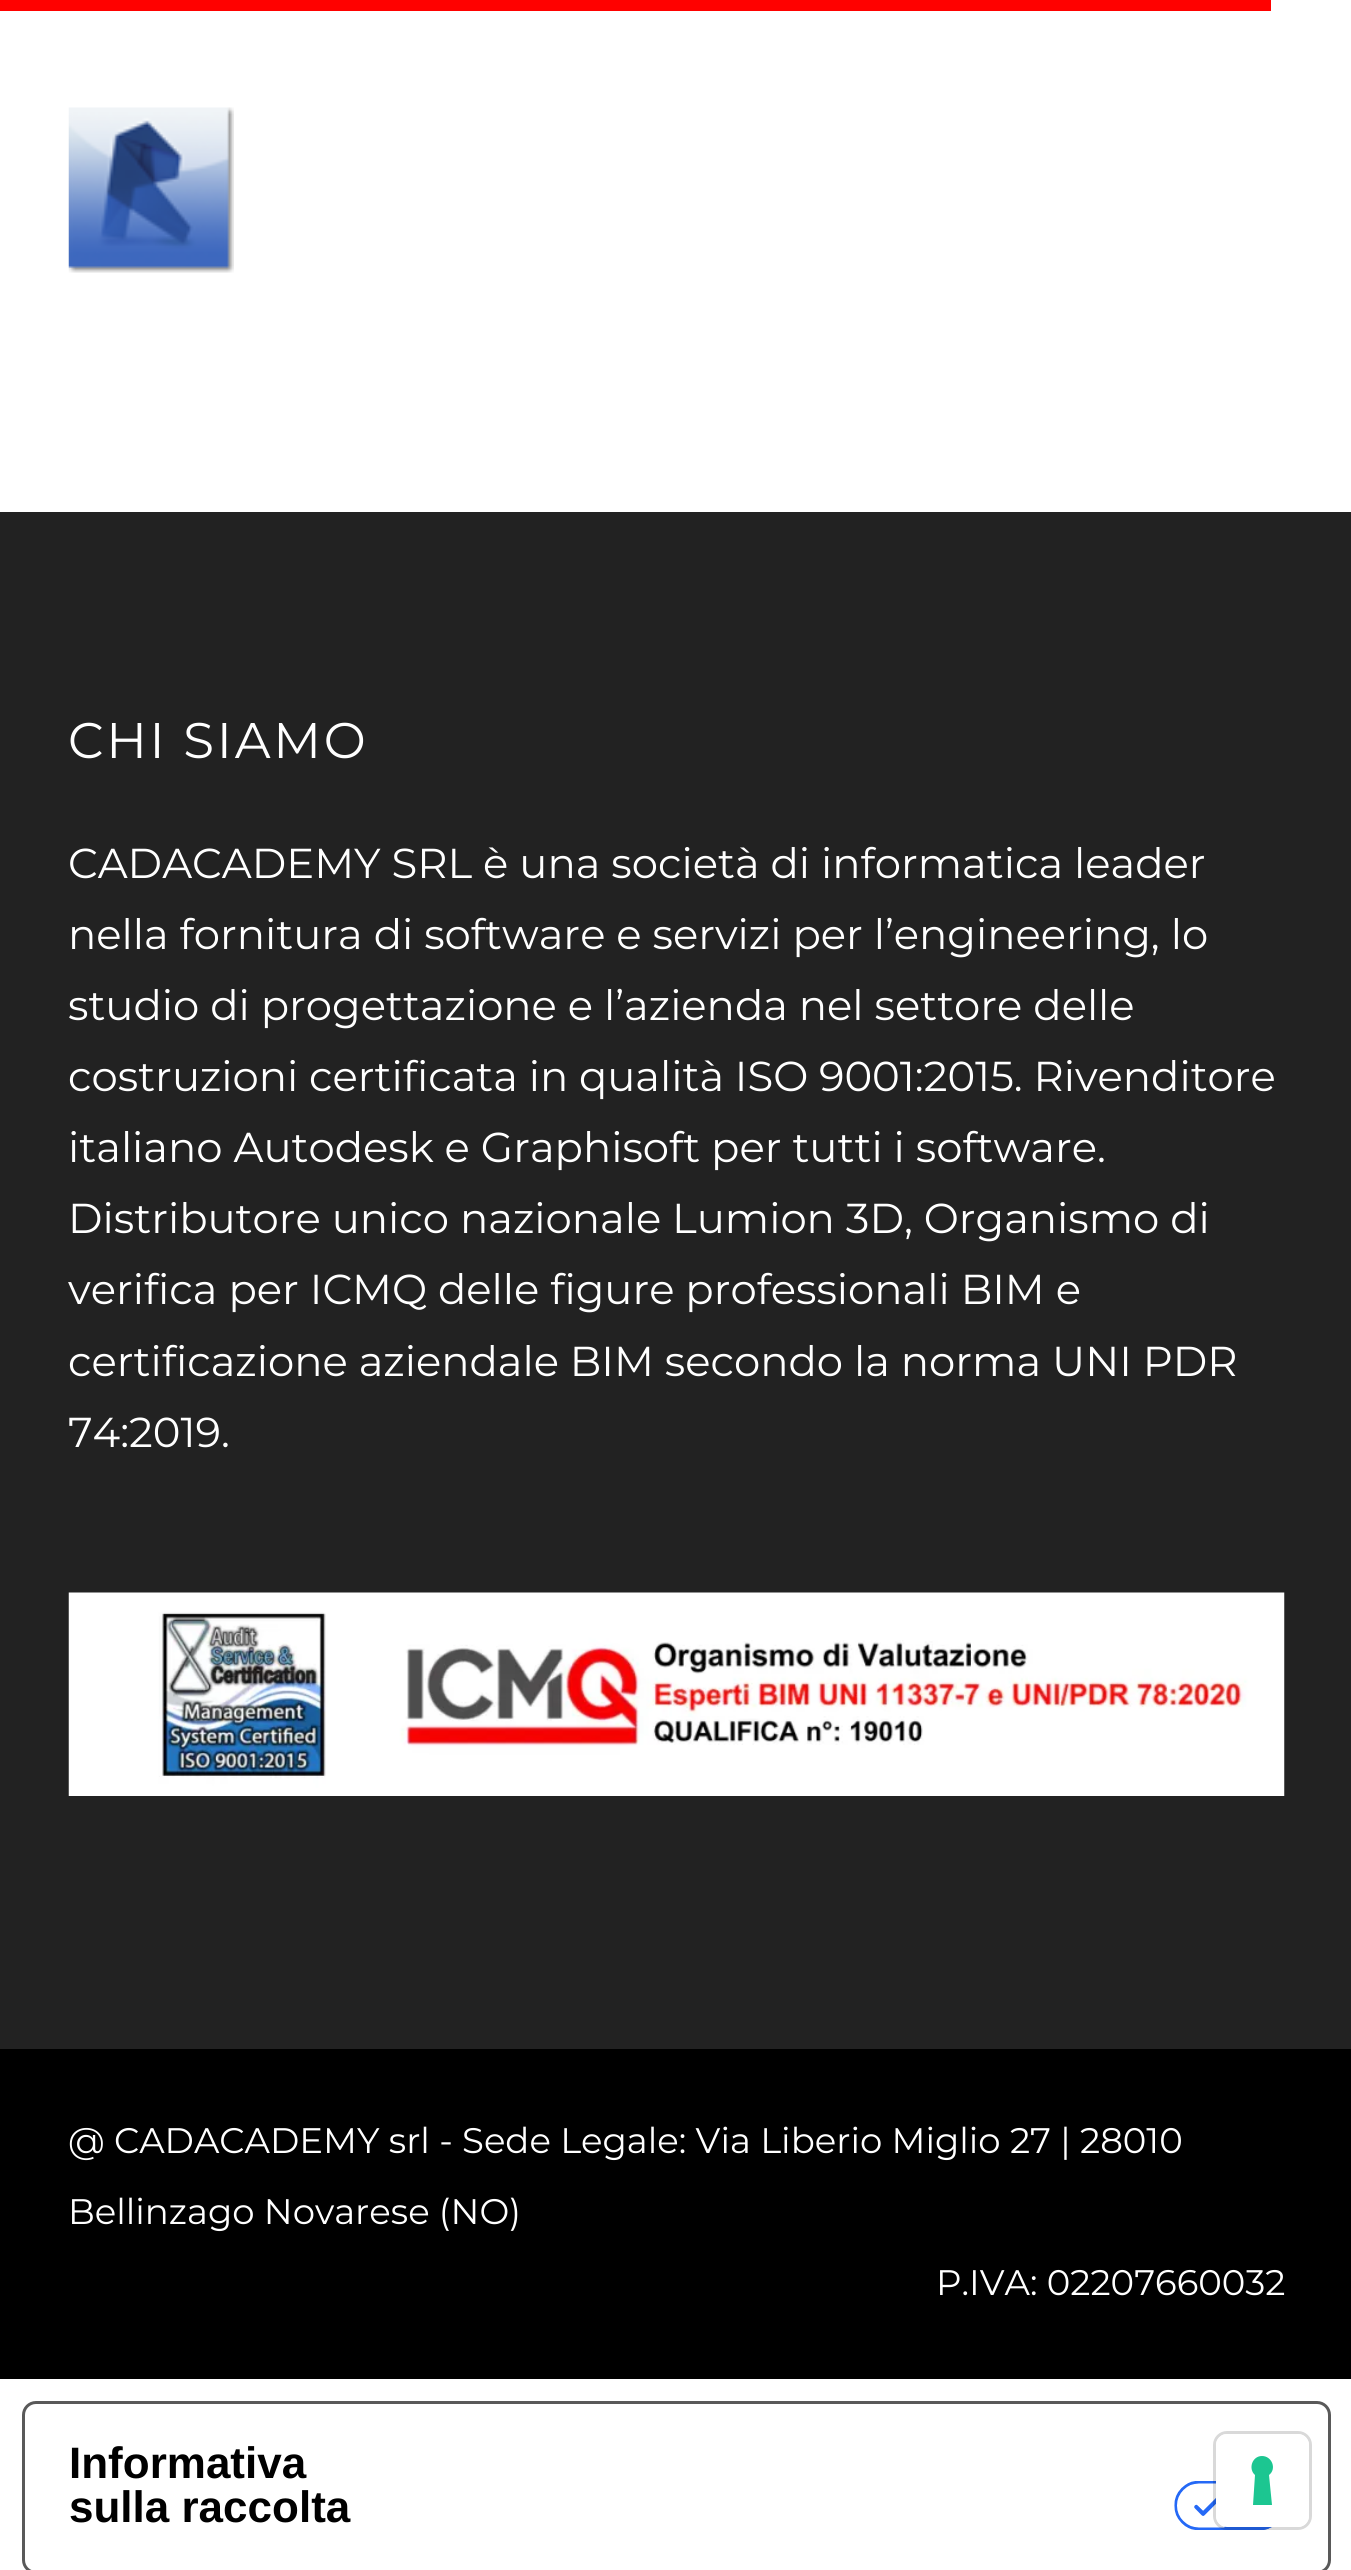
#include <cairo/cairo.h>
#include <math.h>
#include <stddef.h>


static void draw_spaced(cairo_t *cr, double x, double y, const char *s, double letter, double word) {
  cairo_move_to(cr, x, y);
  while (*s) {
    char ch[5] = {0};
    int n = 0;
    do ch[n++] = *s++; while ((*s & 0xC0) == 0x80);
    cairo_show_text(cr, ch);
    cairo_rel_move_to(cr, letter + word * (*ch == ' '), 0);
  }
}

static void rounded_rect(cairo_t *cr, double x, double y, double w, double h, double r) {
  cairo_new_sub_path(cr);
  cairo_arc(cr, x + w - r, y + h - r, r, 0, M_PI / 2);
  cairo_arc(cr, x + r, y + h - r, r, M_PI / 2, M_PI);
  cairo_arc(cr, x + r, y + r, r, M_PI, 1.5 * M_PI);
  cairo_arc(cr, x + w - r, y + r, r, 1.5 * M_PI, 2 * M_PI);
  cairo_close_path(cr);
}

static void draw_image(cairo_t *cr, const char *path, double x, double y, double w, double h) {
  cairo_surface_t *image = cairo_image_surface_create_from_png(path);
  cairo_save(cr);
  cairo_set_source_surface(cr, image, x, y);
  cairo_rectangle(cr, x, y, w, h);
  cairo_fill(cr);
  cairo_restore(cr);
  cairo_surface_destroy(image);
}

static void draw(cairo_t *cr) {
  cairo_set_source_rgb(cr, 1, 1, 1);
  cairo_paint(cr);
  cairo_set_source_rgb(cr, 1, 1 / 255.0, 0);
  cairo_rectangle(cr, 0, 0, 1271, 11);
  cairo_fill(cr);
  draw_image(cr, "images/1.png", 68, 107, 166, 166);
  cairo_set_source_rgb(cr, 34 / 255.0, 34 / 255.0, 34 / 255.0);
  cairo_rectangle(cr, 0, 512, 1351, 1537);
  cairo_fill(cr);
  draw_image(cr, "images/2.png", 68, 1592, 1217, 204);
  cairo_set_source_rgb(cr, 0, 0, 0);
  cairo_rectangle(cr, 0, 2049, 1351, 330);
  cairo_fill(cr);
  rounded_rect(cr, 23.5, 2402.5, 1306, 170, 12.5);
  cairo_set_source_rgb(cr, 89 / 255.0, 89 / 255.0, 89 / 255.0);
  cairo_set_line_width(cr, 3);
  cairo_stroke(cr);
  draw_image(cr, "images/3.png", 1174, 2481, 98, 49);
  rounded_rect(cr, 1214.5, 2432.5, 96, 96, 12.5);
  cairo_set_source_rgba(cr, 0, 0, 0, 0.15);
  cairo_stroke(cr);
  cairo_set_source_rgb(cr, 1, 1, 1);
  rounded_rect(cr, 1216, 2434, 93, 93, 11);
  cairo_fill(cr);
  cairo_set_source_rgb(cr, 28 / 255.0, 198 / 255.0, 145 / 255.0);
  cairo_set_fill_rule(cr, CAIRO_FILL_RULE_EVEN_ODD);
  cairo_new_path(cr);
  cairo_move_to(cr, 1262, 2456);
  cairo_curve_to(cr, 1272, 2456, 1277, 2469, 1269, 2475);
  cairo_line_to(cr, 1272, 2505);
  cairo_line_to(cr, 1253, 2505);
  cairo_line_to(cr, 1255, 2475);
  cairo_curve_to(cr, 1248, 2469, 1252, 2456, 1262, 2456);
  cairo_close_path(cr);
  cairo_fill(cr);
  cairo_select_font_face(cr, "Montserrat", CAIRO_FONT_SLANT_NORMAL, CAIRO_FONT_WEIGHT_NORMAL);
  cairo_set_font_size(cr, 50);
  cairo_set_source_rgb(cr, 1, 1, 1);
  draw_spaced(cr, 68, 758, "CHI SIAMO", 2.75, 0);
  cairo_set_font_size(cr, 41.8);
  cairo_move_to(cr, 68, 878);
  cairo_show_text(cr, "CADACADEMY SRL è una società di informatica leader");
  cairo_move_to(cr, 68, 949);
  cairo_show_text(cr, "nella fornitura di software e servizi per l’engineering, lo");
  cairo_move_to(cr, 68, 1020);
  cairo_show_text(cr, "studio di progettazione e l’azienda nel settore delle");
  draw_spaced(cr, 68, 1091, "costruzioni certificata in qualità ISO 9001:2015. Rivenditore", 0, -0.25);
  cairo_move_to(cr, 68, 1162);
  cairo_show_text(cr, "italiano Autodesk e Graphisoft per tutti i software.");
  cairo_move_to(cr, 68, 1233);
  cairo_show_text(cr, "Distributore unico nazionale Lumion 3D, Organismo di");
  cairo_move_to(cr, 68, 1304);
  cairo_show_text(cr, "verifica per ICMQ delle figure professionali BIM e");
  cairo_move_to(cr, 68, 1376);
  cairo_show_text(cr, "certificazione aziendale BIM secondo la norma UNI PDR");
  cairo_move_to(cr, 68, 1447);
  cairo_show_text(cr, "74:2019.");
  cairo_set_font_size(cr, 35.5);
  cairo_move_to(cr, 68, 2153);
  cairo_show_text(cr, "@ CADACADEMY srl - Sede Legale: Via Liberio Miglio 27 | 28010");
  cairo_move_to(cr, 68, 2224);
  cairo_show_text(cr, "Bellinzago Novarese (NO)");
  cairo_move_to(cr, 936, 2295);
  cairo_show_text(cr, "P.IVA: 02207660032");
  cairo_select_font_face(cr, "Liberation Sans", CAIRO_FONT_SLANT_NORMAL, CAIRO_FONT_WEIGHT_BOLD);
  cairo_set_font_size(cr, 44);
  cairo_set_source_rgb(cr, 0, 0, 0);
  cairo_move_to(cr, 69, 2478);
  cairo_show_text(cr, "Informativa");
  cairo_move_to(cr, 69, 2522);
  cairo_show_text(cr, "sulla raccolta");
}

int main(void) {
  cairo_surface_t *surface = cairo_image_surface_create(CAIRO_FORMAT_RGB24, 1351, 2570);
  cairo_t *cr = cairo_create(surface);
  cairo_font_options_t *options = cairo_font_options_create();
  cairo_font_options_set_hint_metrics(options, CAIRO_HINT_METRICS_OFF);
  cairo_font_options_set_hint_style(options, CAIRO_HINT_STYLE_NONE);
  cairo_set_font_options(cr, options);
  cairo_set_miter_limit(cr, 4);
  draw(cr);
  cairo_surface_write_to_png(surface, "out.png");
  cairo_font_options_destroy(options);
  cairo_destroy(cr);
  cairo_surface_destroy(surface);
  return 0;
}
